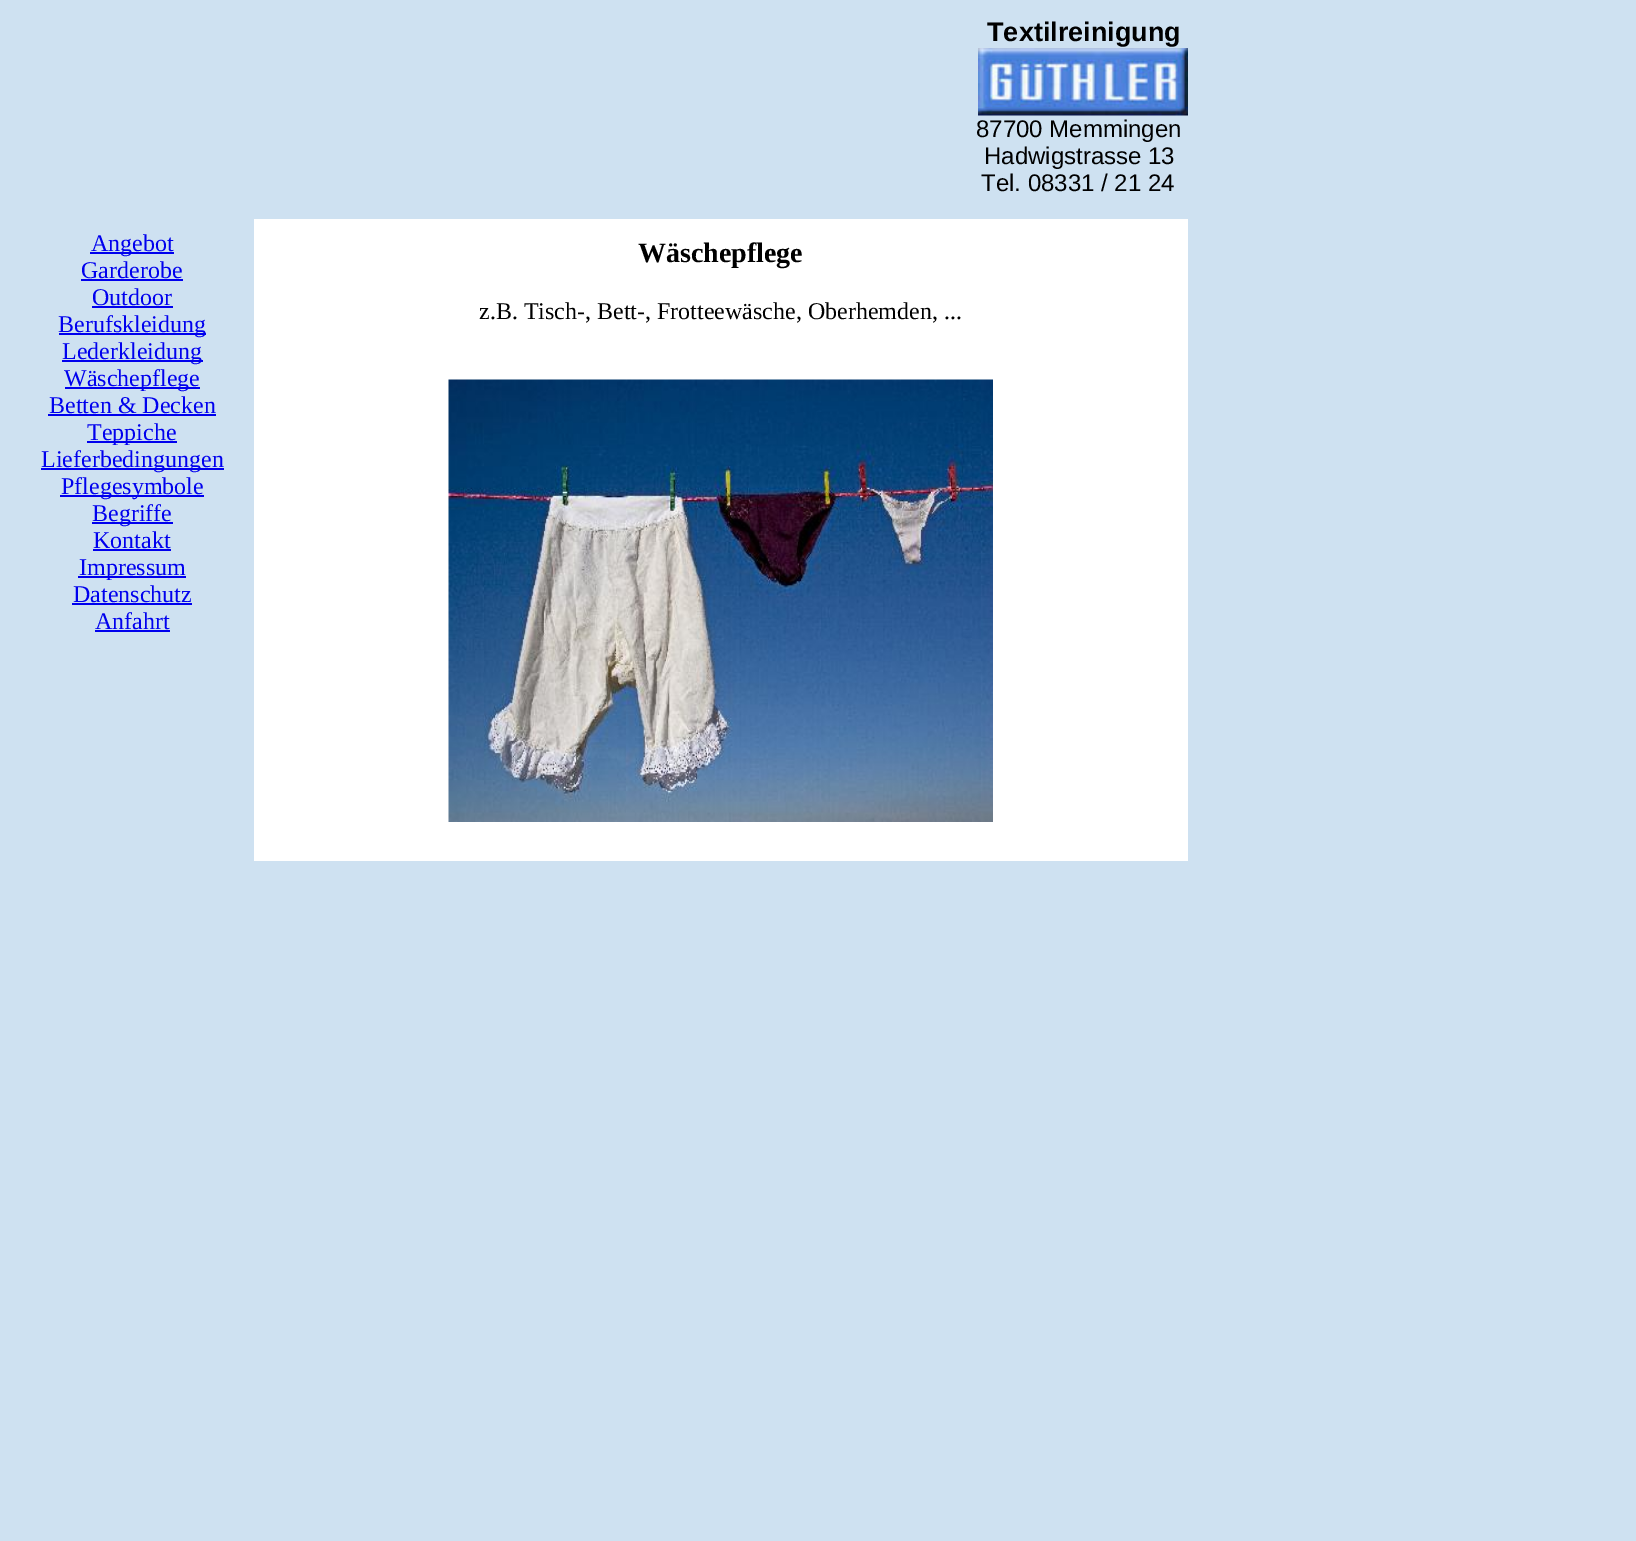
%!PS
<< /PageSize [1636 1541] >> setpagedevice
/co { dup -16 bitshift 255 div exch dup -8 bitshift 255 and 255 div exch 255 and 255 div setrgbcolor } def
/fn { [ exch dup neg 0 0 3 -1 roll 0 0 ] selectfont } def
/tx { co fn moveto show } def
/bx { co rectfill } def
/im { 5 dict begin { /h /w /y /x /name } { exch def } forall
  gsave x y translate w h scale
  w h 8 [w 0 0 h 0 0] name (r) file false 3 colorimage grestore end } def
0 1541 translate 1 -1 scale
4 setmiterlimit
0 0 1636 1541 16#CEE1F1 bx
(media/1.raw) 978 48 210 68 im
90 252 84 2 16#0000EE bx
81 279 102 2 16#0000EE bx
92 306 81 2 16#0000EE bx
59 333 147 2 16#0000EE bx
62 360 141 2 16#0000EE bx
65 387 135 2 16#0000EE bx
48 414 168 2 16#0000EE bx
87 441 90 2 16#0000EE bx
41 468 183 2 16#0000EE bx
60 495 144 2 16#0000EE bx
92 522 81 2 16#0000EE bx
93 549 78 2 16#0000EE bx
78 576 108 2 16#0000EE bx
72 603 120 2 16#0000EE bx
95 630 75 2 16#0000EE bx
254 219 934 642 16#FFFFFF bx
(media/2.raw) 448 379 545 443 im
(Textilreinigung) 987 41 /LiberationSans-Bold 27 16#000000 tx
(87700 Memmingen) 976 137 /LiberationSans-Regular 24 16#000000 tx
(Hadwigstrasse 13) 984 164 /LiberationSans-Regular 24 16#000000 tx
(Tel. 08331 / 21 24) 981 191 /LiberationSans-Regular 24 16#000000 tx
(Angebot) 91 251 /LiberationSerif-Regular 24 16#0000EE tx
(Garderobe) 81 278 /LiberationSerif-Regular 24 16#0000EE tx
(Outdoor) 92 305 /LiberationSerif-Regular 24 16#0000EE tx
(Berufskleidung) 58 332 /LiberationSerif-Regular 24 16#0000EE tx
(Lederkleidung) 62 359 /LiberationSerif-Regular 24 16#0000EE tx
(Wäschepflege) 64 386 /LiberationSerif-Regular 24 16#0000EE tx
(Betten & Decken) 49 413 /LiberationSerif-Regular 24 16#0000EE tx
(Teppiche) 87 440 /LiberationSerif-Regular 24 16#0000EE tx
(Lieferbedingungen) 41 467 /LiberationSerif-Regular 24 16#0000EE tx
(Pflegesymbole) 61 494 /LiberationSerif-Regular 24 16#0000EE tx
(Begriffe) 92 521 /LiberationSerif-Regular 24 16#0000EE tx
(Kontakt) 93 548 /LiberationSerif-Regular 24 16#0000EE tx
(Impressum) 79 575 /LiberationSerif-Regular 24 16#0000EE tx
(Datenschutz) 73 602 /LiberationSerif-Regular 24 16#0000EE tx
(Anfahrt) 95 629 /LiberationSerif-Regular 24 16#0000EE tx
(Wäschepflege) 638 262 /LiberationSerif-Bold 28 16#000000 tx
(z.B. Tisch-, Bett-, Frotteewäsche, Oberhemden, ...) 479 319 /LiberationSerif-Regular 24 16#000000 tx
showpage
